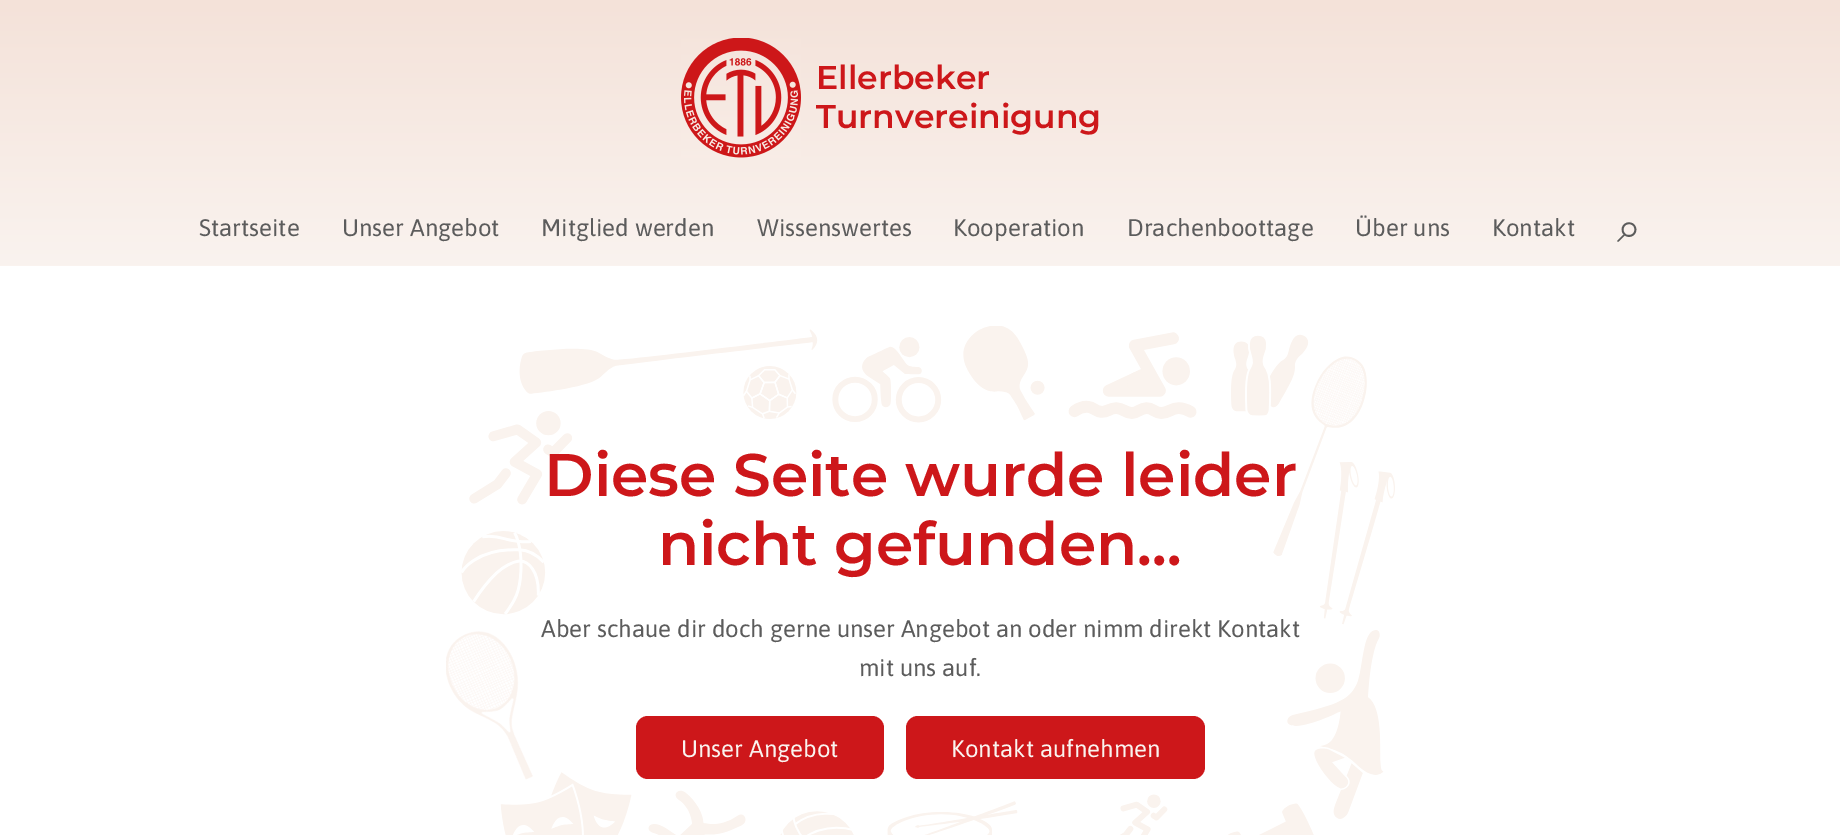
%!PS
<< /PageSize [1840 835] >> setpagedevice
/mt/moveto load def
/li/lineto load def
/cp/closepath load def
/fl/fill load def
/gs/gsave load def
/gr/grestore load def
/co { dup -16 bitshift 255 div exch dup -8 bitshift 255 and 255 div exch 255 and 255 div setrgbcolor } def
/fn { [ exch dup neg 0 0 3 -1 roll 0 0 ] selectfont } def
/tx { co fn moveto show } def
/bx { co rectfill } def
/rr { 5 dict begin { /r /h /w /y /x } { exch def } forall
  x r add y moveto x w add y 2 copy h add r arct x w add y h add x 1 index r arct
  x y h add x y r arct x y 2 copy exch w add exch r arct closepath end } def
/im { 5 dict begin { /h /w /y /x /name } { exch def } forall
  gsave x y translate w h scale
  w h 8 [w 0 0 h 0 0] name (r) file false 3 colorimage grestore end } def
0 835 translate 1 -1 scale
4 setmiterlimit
0 0 1840 835 16#FFFFFF bx
gs 0 0 mt 1840 0 li 1840 266 li 0 266 li cp clip newpath
<< /ShadingType 2 /ColorSpace /DeviceRGB /Coords [920 0 920 266] /Extend [true true] /Function << /FunctionType 2 /Domain [0 1] /C0 [.957 .886 .851] /C1 [.98 .953 .937] /N 1 >> >> shfill gr
(media/1.raw) 681 38 120 120 im
(media/2.raw) 446 326 949 509 im
16#CD171A co
636 716 248 63 12 rr fl
906 716 299 63 12 rr fl
(Ellerbeker) 816 89 /Montserrat-SemiBold 33 16#CD171A tx
(Turnvereinigung) 816 128 /Montserrat-SemiBold 33 16#CD171A tx
(Startseite) 199 236 /Asap-Regular 24 16#5C5C5C tx
(Unser Angebot) 342 236 /Asap-Regular 24 16#5C5C5C tx
(Mitglied werden) 541 236 /Asap-Regular 24 16#5C5C5C tx
(Wissenswertes) 757 236 /Asap-Regular 24 16#5C5C5C tx
(Kooperation) 953 236 /Asap-Regular 24 16#5C5C5C tx
(Drachenboottage) 1127 236 /Asap-Regular 24 16#5C5C5C tx
(Über uns) 1355 236 /Asap-Regular 24 16#5C5C5C tx
(Kontakt) 1492 236 /Asap-Regular 24 16#5C5C5C tx
(⌕) 1617 242 /FreeSerif-Regular 43 16#5C5C5C tx
(Diese Seite wurde leider) 544 496 /Montserrat-SemiBold 60 16#CD171A tx
(nicht gefunden…) 658 565 /Montserrat-SemiBold 60 16#CD171A tx
(Aber schaue dir doch gerne unser Angebot an oder nimm direkt Kontakt) 541 637 /Asap-Regular 24 16#5C5C5C tx
(mit uns auf.) 859 676 /Asap-Regular 24 16#5C5C5C tx
(Unser Angebot) 681 757 /Asap-Regular 24 16#FAF3EF tx
(Kontakt aufnehmen) 951 757 /Asap-Regular 24 16#FAF3EF tx
showpage
